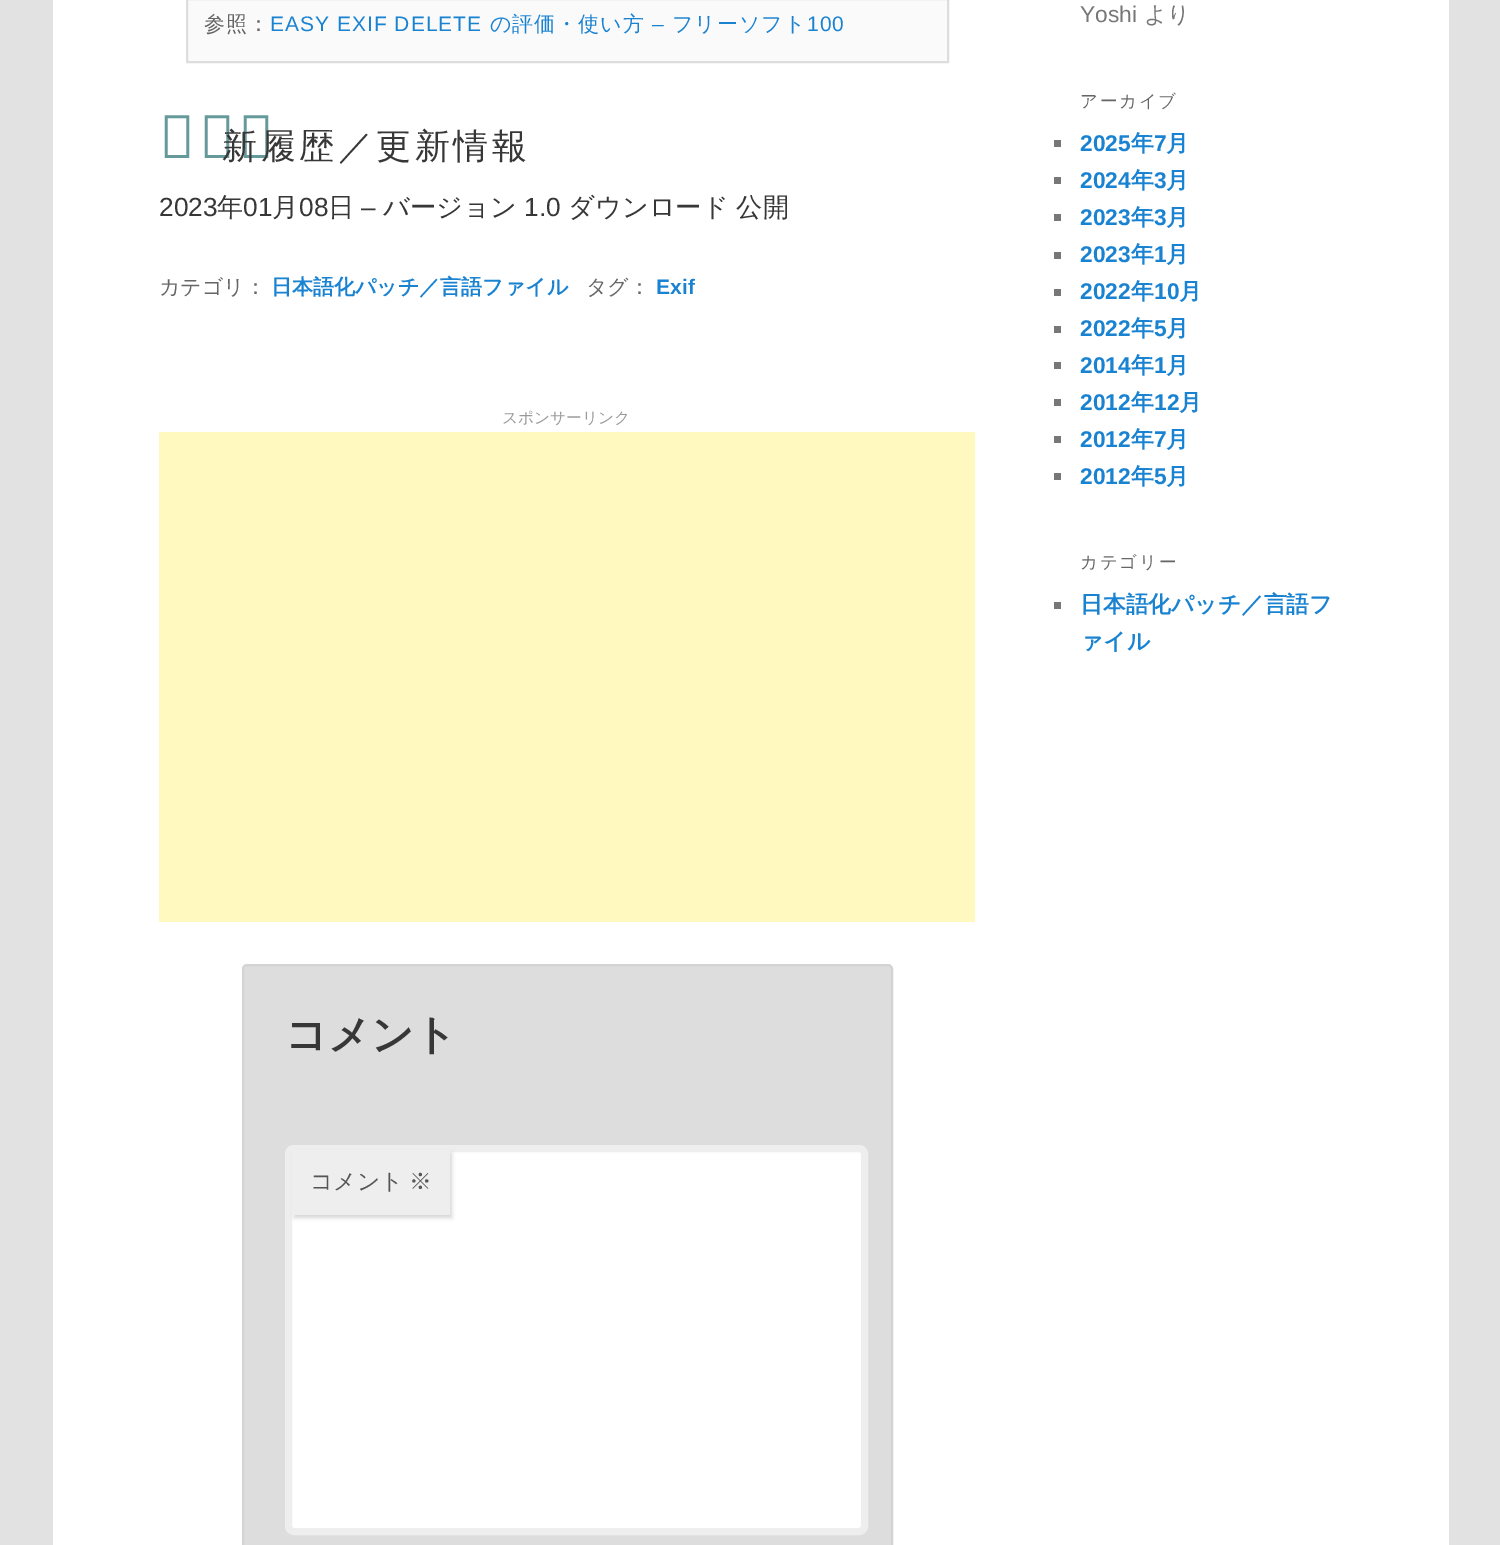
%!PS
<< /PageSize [1500 1545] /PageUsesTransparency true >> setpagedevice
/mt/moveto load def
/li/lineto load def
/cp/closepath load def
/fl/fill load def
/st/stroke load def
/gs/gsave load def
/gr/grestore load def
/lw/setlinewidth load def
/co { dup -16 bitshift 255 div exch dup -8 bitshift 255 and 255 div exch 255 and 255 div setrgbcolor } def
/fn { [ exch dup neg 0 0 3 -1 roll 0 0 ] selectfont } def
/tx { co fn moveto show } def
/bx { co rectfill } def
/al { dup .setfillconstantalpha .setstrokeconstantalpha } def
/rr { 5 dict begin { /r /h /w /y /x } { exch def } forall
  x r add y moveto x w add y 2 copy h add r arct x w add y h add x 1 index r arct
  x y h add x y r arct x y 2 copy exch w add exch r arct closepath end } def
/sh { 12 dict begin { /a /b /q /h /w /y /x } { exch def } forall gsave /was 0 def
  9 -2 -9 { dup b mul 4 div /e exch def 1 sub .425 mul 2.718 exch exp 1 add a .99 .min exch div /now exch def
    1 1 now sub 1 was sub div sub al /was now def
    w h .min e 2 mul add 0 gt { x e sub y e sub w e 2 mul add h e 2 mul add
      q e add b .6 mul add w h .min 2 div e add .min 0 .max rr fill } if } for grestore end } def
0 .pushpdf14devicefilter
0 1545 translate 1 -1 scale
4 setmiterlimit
0 0 1500 1545 16#E2E2E2 bx
53 0 1396 1545 16#FFFFFF bx
16#FAFAFA co
187 -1 mt 948 -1 li 948 62 li 187 62 li cp gs fl gr
16#DDDDDD co
2 lw
st
159 432 816 490 16#FFF9C0 bx
16#DDDDDD co
243 965 649 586 4 rr gs fl gr
16#D3D3D3 co
st
16#FFFFFF co
288.5 1148.5 576 383 5.5 rr gs fl gr
16#EEEEEE co
7 lw
st
16#CCCCCC co
294 1153 158 65 0 2 .8 sh
292 1150 158 65 16#EEEEEE bx
1054 140 7 7 16#777777 bx
1054 177 7 7 16#777777 bx
1054 214 7 7 16#777777 bx
1054 252 7 7 16#777777 bx
1054 289 7 7 16#777777 bx
1054 326 7 7 16#777777 bx
1054 362 7 7 16#777777 bx
1054 399 7 7 16#777777 bx
1054 436 7 7 16#777777 bx
1054 473 7 7 16#777777 bx
1054 602 7 7 16#777777 bx
/WenQuanYiZenHei-Medium 21 fn
16#666666 co
204 31 mt 1 0 (参照：) ashow
/LiberationSans-Regular 21 fn
16#1982D1 co
270 31 mt 1 0 (EASY EXIF DELETE) ashow
/WenQuanYiZenHei-Medium 21 fn
490 31 mt 1 0 (の評価・使い方) ashow
/LiberationSans-Regular 21 fn
652 31 mt 1 0 (–) ashow
/WenQuanYiZenHei-Medium 21 fn
672 31 mt 1 0 (フリーソフト) ashow
/LiberationSans-Regular 21 fn
807 31 mt 1 0 (100) ashow
/NotoSans-Thin 60 fn
16#669A9A co
159 158 mt 3.5 0 (更) ashow
/WenQuanYiZenHei-Medium 35 fn
16#373737 co
222 158 mt 3.5 0 (新履歴／更新情報) ashow
(2023) 159 216 /LiberationSans-Regular 26.25 16#373737 tx
(年) 217 216 /WenQuanYiZenHei-Medium 26.25 16#373737 tx
(01) 243 216 /LiberationSans-Regular 26.25 16#373737 tx
(月) 272 216 /WenQuanYiZenHei-Medium 26.25 16#373737 tx
(08) 299 216 /LiberationSans-Regular 26.25 16#373737 tx
(日) 328 216 /WenQuanYiZenHei-Medium 26.25 16#373737 tx
(–) 361 216 /LiberationSans-Regular 26.25 16#373737 tx
(バージョン) 383 216 /WenQuanYiZenHei-Medium 26.25 16#373737 tx
(1.0) 524 216 /LiberationSans-Regular 26.25 16#373737 tx
(ダウンロード 公開) 568 216 /WenQuanYiZenHei-Medium 26.25 16#373737 tx
(カテゴリ：) 159 294 /WenQuanYiZenHei-Medium 21 16#666666 tx
(日本語化パッチ／言語ファイル) 271 294 /WenQuanYiZenHei-Bold 21 16#1982D1 tx
(タグ：) 586 294 /WenQuanYiZenHei-Medium 21 16#666666 tx
(Exif) 656 294 /LiberationSans-Bold 21 16#1982D1 tx
(スポンサーリンク) 502 423 /WenQuanYiZenHei-Medium 15.75 16#999999 tx
(コメント) 285 1049 /WenQuanYiZenHei-Bold 42 16#373737 tx
(コメント) 310 1189 /WenQuanYiZenHei-Medium 22.75 16#555555 tx
(※) 409 1189 /WenQuanYiZenHei-Medium 22.75 16#555555 tx
(Yoshi) 1080 22 /LiberationSans-Regular 22.75 16#777777 tx
(より) 1144 22 /WenQuanYiZenHei-Medium 22.75 16#777777 tx
/WenQuanYiZenHei-Medium 17.5 fn
16#666666 co
1080 107 mt 1.75 0 (アーカイブ) ashow
(2025) 1080 151 /LiberationSans-Bold 22.75 16#1982D1 tx
(年) 1131 151 /WenQuanYiZenHei-Bold 22.75 16#1982D1 tx
(7) 1154 151 /LiberationSans-Bold 22.75 16#1982D1 tx
(月) 1166 151 /WenQuanYiZenHei-Bold 22.75 16#1982D1 tx
(2024) 1080 188 /LiberationSans-Bold 22.75 16#1982D1 tx
(年) 1131 188 /WenQuanYiZenHei-Bold 22.75 16#1982D1 tx
(3) 1154 188 /LiberationSans-Bold 22.75 16#1982D1 tx
(月) 1166 188 /WenQuanYiZenHei-Bold 22.75 16#1982D1 tx
(2023) 1080 225 /LiberationSans-Bold 22.75 16#1982D1 tx
(年) 1131 225 /WenQuanYiZenHei-Bold 22.75 16#1982D1 tx
(3) 1154 225 /LiberationSans-Bold 22.75 16#1982D1 tx
(月) 1166 225 /WenQuanYiZenHei-Bold 22.75 16#1982D1 tx
(2023) 1080 262 /LiberationSans-Bold 22.75 16#1982D1 tx
(年) 1131 262 /WenQuanYiZenHei-Bold 22.75 16#1982D1 tx
(1) 1154 262 /LiberationSans-Bold 22.75 16#1982D1 tx
(月) 1166 262 /WenQuanYiZenHei-Bold 22.75 16#1982D1 tx
(2022) 1080 299 /LiberationSans-Bold 22.75 16#1982D1 tx
(年) 1131 299 /WenQuanYiZenHei-Bold 22.75 16#1982D1 tx
(10) 1154 299 /LiberationSans-Bold 22.75 16#1982D1 tx
(月) 1179 299 /WenQuanYiZenHei-Bold 22.75 16#1982D1 tx
(2022) 1080 336 /LiberationSans-Bold 22.75 16#1982D1 tx
(年) 1131 336 /WenQuanYiZenHei-Bold 22.75 16#1982D1 tx
(5) 1154 336 /LiberationSans-Bold 22.75 16#1982D1 tx
(月) 1166 336 /WenQuanYiZenHei-Bold 22.75 16#1982D1 tx
(2014) 1080 373 /LiberationSans-Bold 22.75 16#1982D1 tx
(年) 1131 373 /WenQuanYiZenHei-Bold 22.75 16#1982D1 tx
(1) 1154 373 /LiberationSans-Bold 22.75 16#1982D1 tx
(月) 1166 373 /WenQuanYiZenHei-Bold 22.75 16#1982D1 tx
(2012) 1080 410 /LiberationSans-Bold 22.75 16#1982D1 tx
(年) 1131 410 /WenQuanYiZenHei-Bold 22.75 16#1982D1 tx
(12) 1154 410 /LiberationSans-Bold 22.75 16#1982D1 tx
(月) 1179 410 /WenQuanYiZenHei-Bold 22.75 16#1982D1 tx
(2012) 1080 447 /LiberationSans-Bold 22.75 16#1982D1 tx
(年) 1131 447 /WenQuanYiZenHei-Bold 22.75 16#1982D1 tx
(7) 1154 447 /LiberationSans-Bold 22.75 16#1982D1 tx
(月) 1166 447 /WenQuanYiZenHei-Bold 22.75 16#1982D1 tx
(2012) 1080 484 /LiberationSans-Bold 22.75 16#1982D1 tx
(年) 1131 484 /WenQuanYiZenHei-Bold 22.75 16#1982D1 tx
(5) 1154 484 /LiberationSans-Bold 22.75 16#1982D1 tx
(月) 1166 484 /WenQuanYiZenHei-Bold 22.75 16#1982D1 tx
/WenQuanYiZenHei-Medium 17.5 fn
16#666666 co
1080 568 mt 1.75 0 (カテゴリー) ashow
(日本語化パッチ／言語フ) 1080 612 /WenQuanYiZenHei-Bold 22.75 16#1982D1 tx
(ァイル) 1080 649 /WenQuanYiZenHei-Bold 22.75 16#1982D1 tx
.poppdf14devicefilter showpage
